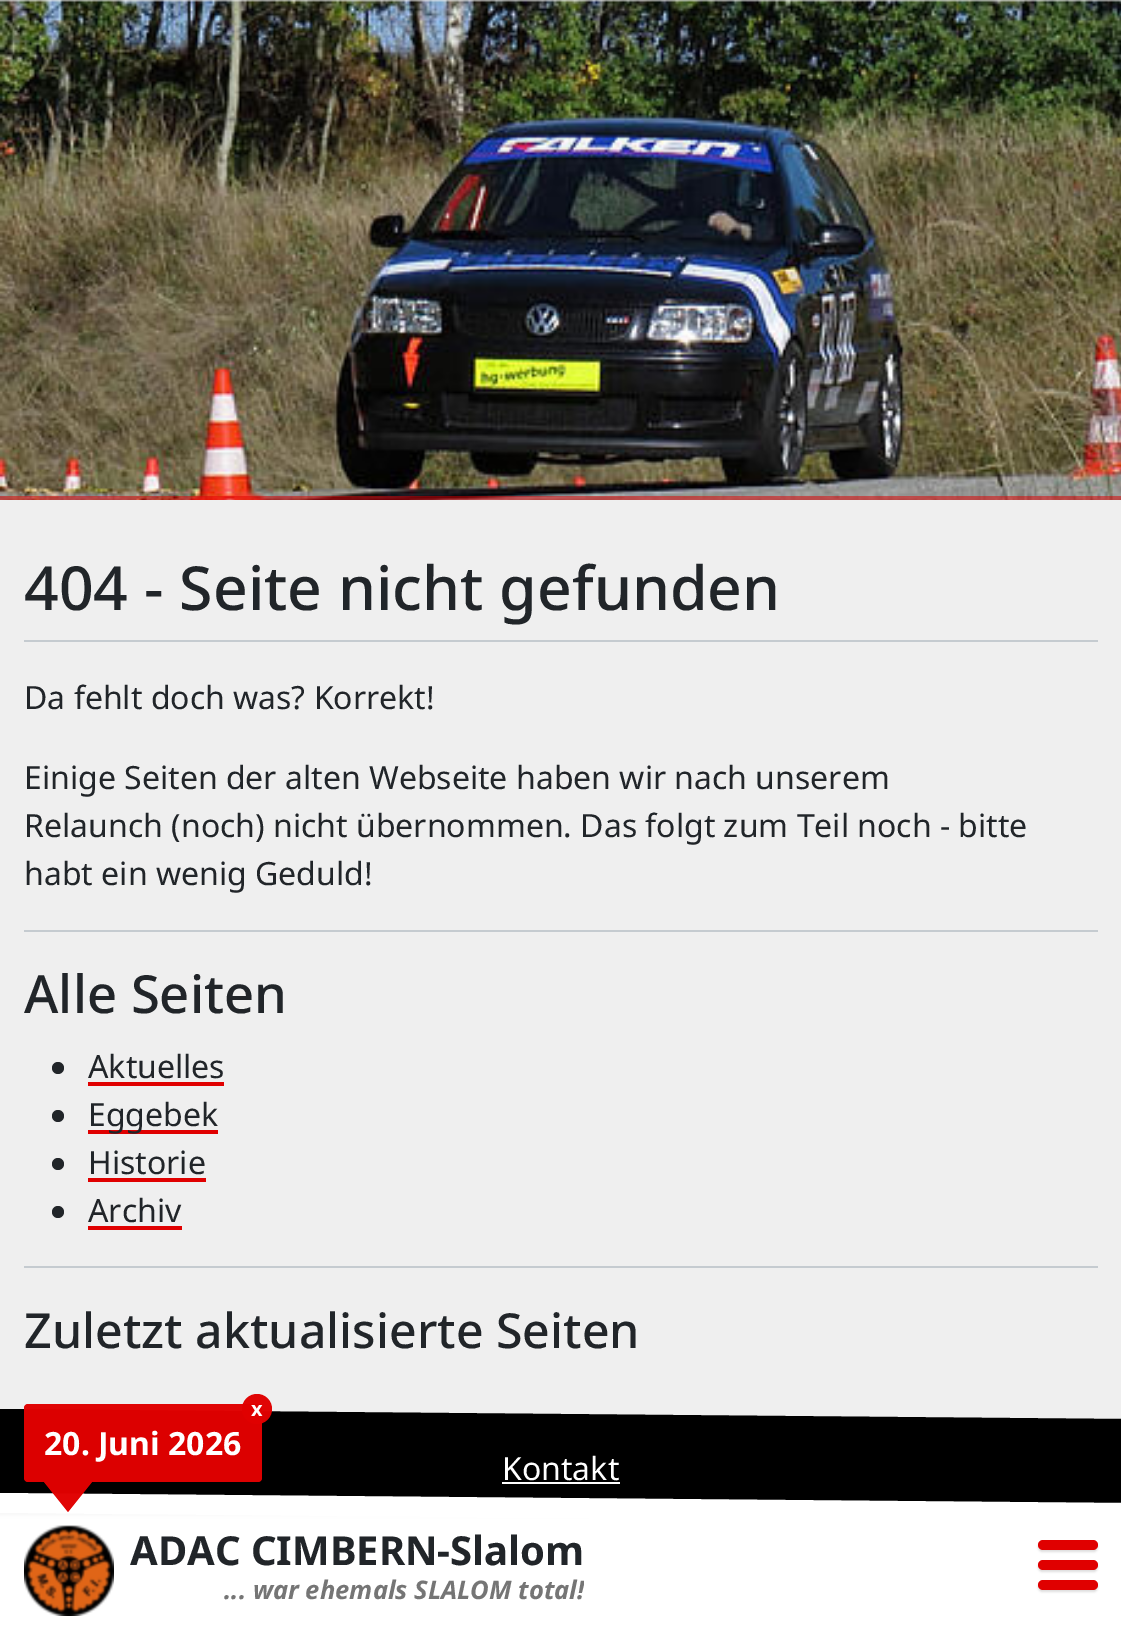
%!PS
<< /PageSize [1121 1642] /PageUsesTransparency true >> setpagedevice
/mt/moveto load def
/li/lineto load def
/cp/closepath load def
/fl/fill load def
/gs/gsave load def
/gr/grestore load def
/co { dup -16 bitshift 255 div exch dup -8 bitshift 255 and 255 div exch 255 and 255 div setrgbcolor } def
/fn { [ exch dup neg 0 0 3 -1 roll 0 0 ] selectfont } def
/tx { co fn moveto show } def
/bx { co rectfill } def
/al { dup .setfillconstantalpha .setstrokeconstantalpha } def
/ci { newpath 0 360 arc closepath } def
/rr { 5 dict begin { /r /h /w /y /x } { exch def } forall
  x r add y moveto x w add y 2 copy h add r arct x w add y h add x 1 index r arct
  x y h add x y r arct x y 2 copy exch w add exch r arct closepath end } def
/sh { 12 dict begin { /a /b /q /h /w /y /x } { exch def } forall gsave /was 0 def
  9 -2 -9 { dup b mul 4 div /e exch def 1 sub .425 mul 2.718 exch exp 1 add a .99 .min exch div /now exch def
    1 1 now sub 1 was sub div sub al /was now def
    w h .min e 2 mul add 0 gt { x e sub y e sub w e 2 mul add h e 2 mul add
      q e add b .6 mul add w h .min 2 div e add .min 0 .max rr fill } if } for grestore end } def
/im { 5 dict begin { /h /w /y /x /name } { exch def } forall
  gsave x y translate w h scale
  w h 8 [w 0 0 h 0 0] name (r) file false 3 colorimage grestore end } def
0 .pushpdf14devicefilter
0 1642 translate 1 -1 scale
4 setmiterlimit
0 0 1121 1642 16#EFEFEF bx
(media/1.raw) 0 0 1121 500 im
0.5 al
0 496 1121 4 16#E00000 bx
1 al
24 640 1074 2 16#C5CBD0 bx
24 930 1074 2 16#C5CBD0 bx
16#212529 co
58 1068 6 ci fl
88 1082 136 4 16#E00000 bx
16#212529 co
58 1116 6 ci fl
88 1130 130 4 16#E00000 bx
16#212529 co
58 1164 6 ci fl
88 1178 118 4 16#E00000 bx
16#212529 co
58 1212 6 ci fl
88 1226 94 4 16#E00000 bx
24 1266 1074 2 16#C5CBD0 bx
0 1513 1121 129 16#FFFFFF bx
0 1429 1121 74 16#000000 bx
0 1409 mt 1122 1419 li 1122 1439 li 0 1429 li cp fl
0.98 al
16#E00000 co
24 1404 238 78 4 rr fl
257 1409 15 ci fl
1 al
502 1482 118 2 16#FFFFFF bx
16#000000 co
0 1492 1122 20 0 3 .12 sh
16#FFFFFF co
0 1493 mt 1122 1503 li 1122 1523 li 0 1513 li cp fl
0.98 al
16#E00000 co
44 1482 mt 92 1482 li 68 1512 li cp fl
1 al
(media/2.raw) 24 1525 90 91 im
16#000000 co
1038 1542 60 10 5 1 .12 sh
16#E00000 co
1038 1540 60 10 5 rr fl
16#000000 co
1038 1562 60 10 5 1 .12 sh
16#E00000 co
1038 1560 60 10 5 rr fl
16#000000 co
1038 1582 60 10 5 1 .12 sh
16#E00000 co
1038 1580 60 10 5 rr fl
(404 - Seite nicht gefunden) 24 610 /NotoSans-Medium 60.75 16#212529 tx
(Da fehlt doch was? Korrekt!) 24 709 /NotoSans-Regular 32 16#212529 tx
(Einige Seiten der alten Webseite haben wir nach unserem) 24 789 /NotoSans-Regular 32 16#212529 tx
(Relaunch \(noch\) nicht übernommen. Das folgt zum Teil noch - bitte) 24 837 /NotoSans-Regular 32 16#212529 tx
(habt ein wenig Geduld!) 24 885 /NotoSans-Regular 32 16#212529 tx
(Alle Seiten) 24 1013 /NotoSans-Medium 52.5 16#212529 tx
(Aktuelles) 88 1078 /NotoSans-Regular 32 16#212529 tx
(Eggebek) 88 1126 /NotoSans-Regular 32 16#212529 tx
(Historie) 88 1174 /NotoSans-Regular 32 16#212529 tx
(Archiv) 88 1222 /NotoSans-Regular 32 16#212529 tx
(Zuletzt aktualisierte Seiten) 24 1348 /NotoSans-Medium 48.3 16#212529 tx
(x) 251 1416 /NotoSans-Bold 20 16#FFFFFF tx
(20. Juni 2026) 44 1455 /NotoSans-Bold 32 16#FFFFFF tx
(ADAC CIMBERN-Slalom) 130 1565 /NotoSans-Bold 40 16#212529 tx
gs
130 1520 454 90 rectclip
(... war ehemals SLALOM total!) 224 1599 /NotoSans-BoldItalic 25.6 16#757575 tx
gr
(Kontakt) 502 1480 /NotoSans-Regular 32 16#FFFFFF tx
.poppdf14devicefilter showpage
